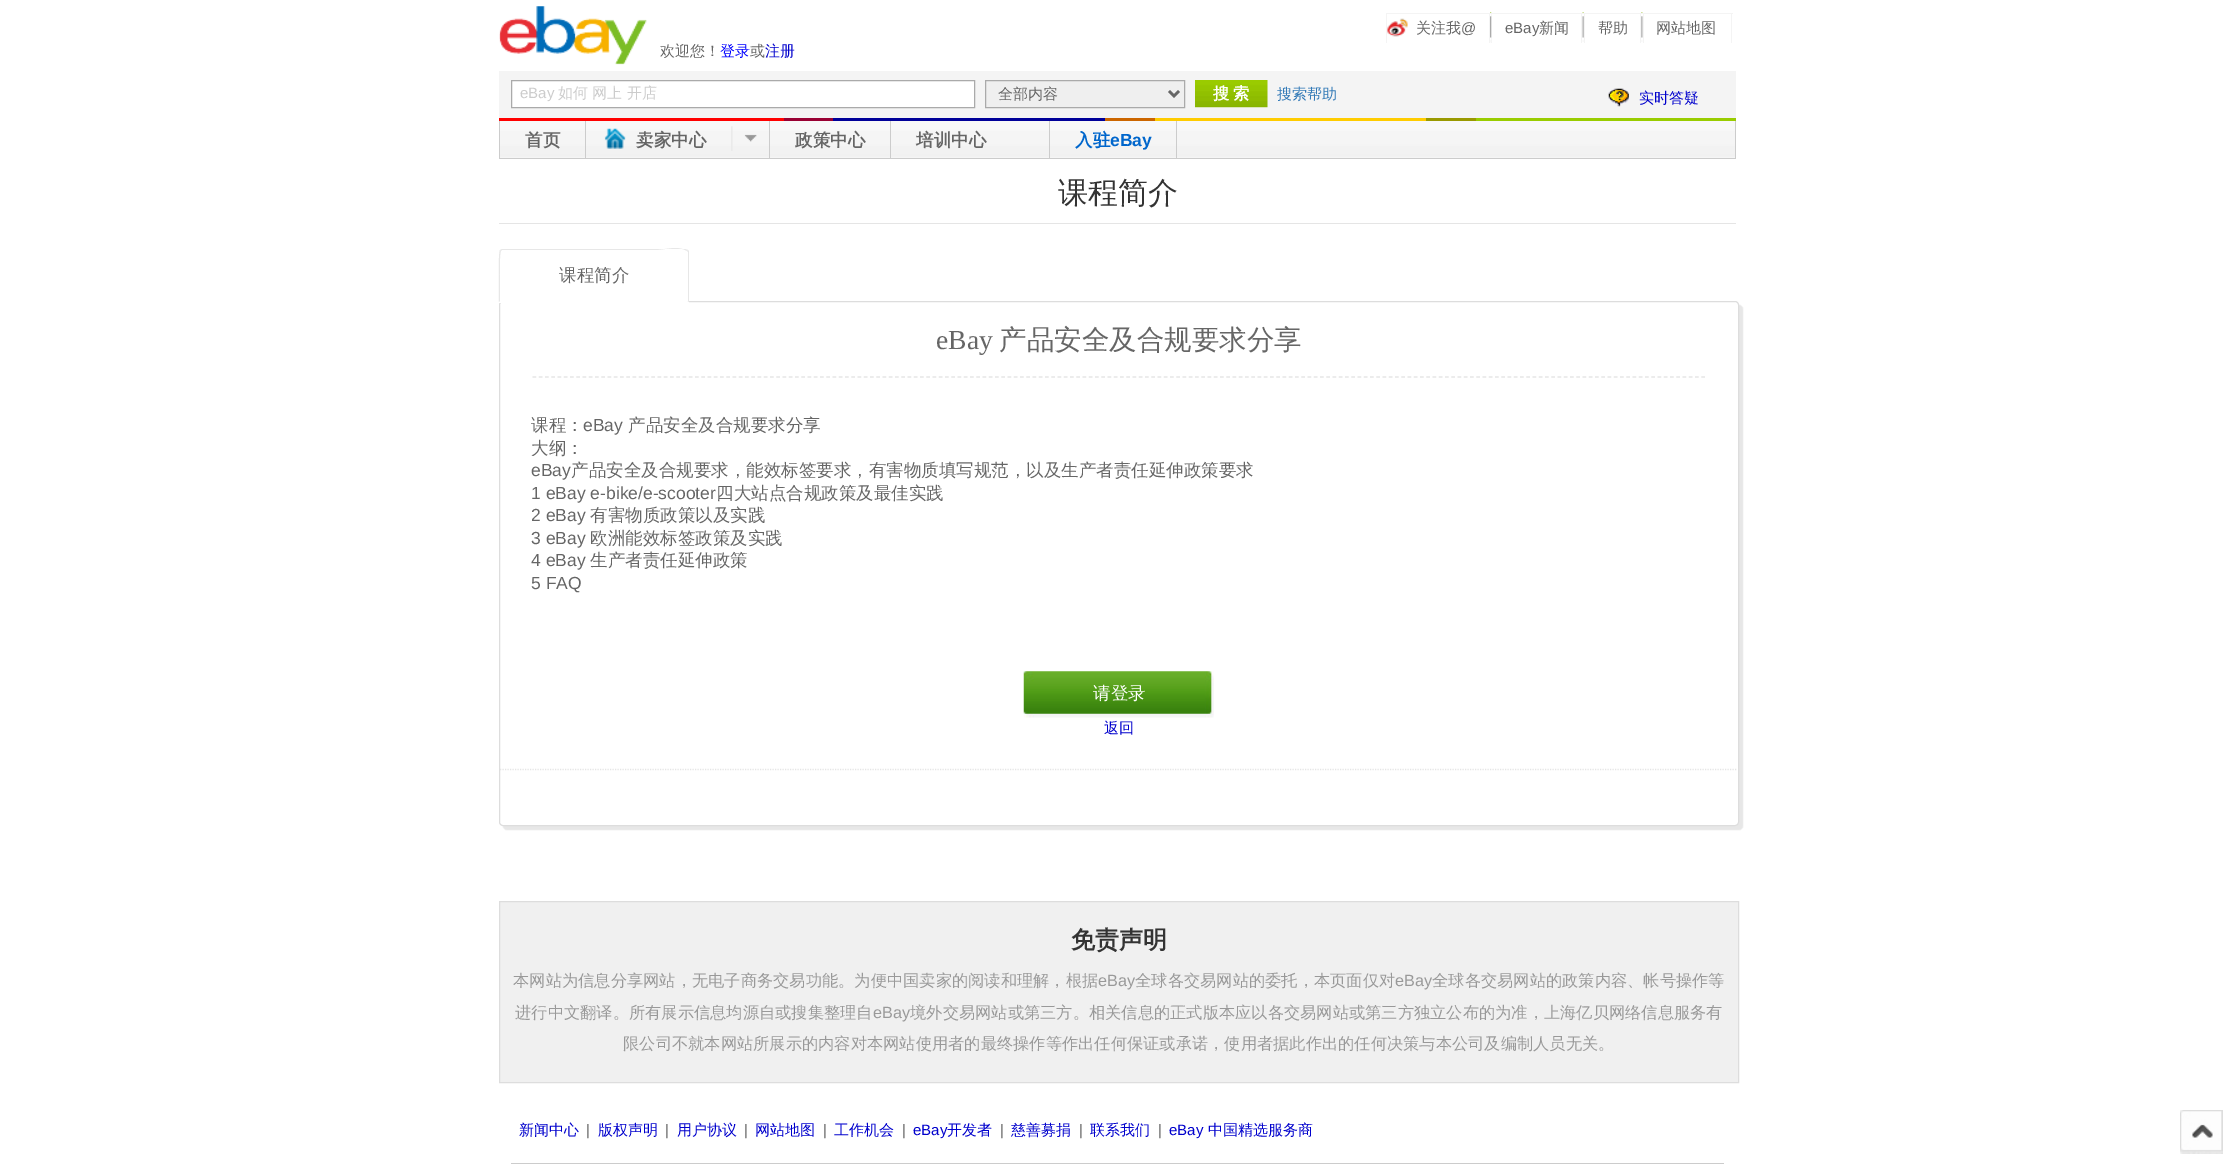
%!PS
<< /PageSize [2234 1166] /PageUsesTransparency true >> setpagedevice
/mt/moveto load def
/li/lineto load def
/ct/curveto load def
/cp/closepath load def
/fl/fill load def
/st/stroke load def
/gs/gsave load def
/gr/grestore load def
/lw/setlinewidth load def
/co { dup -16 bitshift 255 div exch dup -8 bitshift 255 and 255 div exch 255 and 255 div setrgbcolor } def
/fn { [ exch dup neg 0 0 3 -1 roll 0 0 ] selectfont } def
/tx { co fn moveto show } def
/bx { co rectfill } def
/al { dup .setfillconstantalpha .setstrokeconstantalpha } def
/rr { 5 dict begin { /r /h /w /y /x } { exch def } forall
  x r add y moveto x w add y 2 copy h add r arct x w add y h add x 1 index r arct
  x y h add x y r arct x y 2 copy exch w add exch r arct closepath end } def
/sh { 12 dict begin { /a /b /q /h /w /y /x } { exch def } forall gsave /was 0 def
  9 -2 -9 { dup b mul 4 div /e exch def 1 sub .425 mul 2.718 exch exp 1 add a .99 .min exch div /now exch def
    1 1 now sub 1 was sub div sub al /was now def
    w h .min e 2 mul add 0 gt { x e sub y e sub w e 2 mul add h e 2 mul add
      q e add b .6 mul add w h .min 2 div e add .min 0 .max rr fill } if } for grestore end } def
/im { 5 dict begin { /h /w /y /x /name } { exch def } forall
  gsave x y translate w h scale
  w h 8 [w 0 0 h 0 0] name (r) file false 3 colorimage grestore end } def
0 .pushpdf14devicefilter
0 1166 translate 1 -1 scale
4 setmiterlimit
0 0 2234 1166 16#FFFFFF bx
(media/1.raw) 1387 18 21 19 im
1386 13 107 1 16#F4F4F4 bx
1491 13 1 30 16#F4F4F4 bx
1386 13 1 30 16#F4F4F4 bx
(media/2.raw) 1490 12 2 31 im
1489 13 96 1 16#F4F4F4 bx
1584 13 1 30 16#F4F4F4 bx
1489 13 1 30 16#F4F4F4 bx
(media/3.raw) 1582 12 2 30 im
1581 13 63 1 16#F4F4F4 bx
1643 13 1 30 16#F4F4F4 bx
1581 13 1 30 16#F4F4F4 bx
(media/4.raw) 1641 12 2 30 im
1640 13 93 1 16#F4F4F4 bx
1731 13 1 30 16#F4F4F4 bx
1640 13 1 30 16#F4F4F4 bx
(media/5.raw) 499 6 148 59 im
499 71 1237 47 16#F4F4F4 bx
16#FFFFFF co
511.5 80.5 mt 974.5 80.5 li 974.5 107.5 li 511.5 107.5 li cp gs fl gr
16#AAAAAA co
st
16#EFEFEF co
985.5 80.5 mt 1184.5 80.5 li 1184.5 107.5 li 985.5 107.5 li cp gs fl gr
16#AAAAAA co
st
16#666666 co
2.5 lw
1169 91 mt 1174 96 li 1179 91 li st
(media/6.raw) 1195 80 73 28 im
(media/7.raw) 1608 88 21 19 im
1735 120 1 39 16#CCCCCC bx
499 158 1237 1 16#CCCCCC bx
499 120 1 39 16#CCCCCC bx
(media/8.raw) 500 121 1235 37 im
585 120 1 38 16#CCCCCC bx
769 120 1 38 16#CCCCCC bx
499 118 285 3 16#FF0000 bx
784 118 49 3 16#990033 bx
890 120 1 38 16#CCCCCC bx
1049 120 1 38 16#CCCCCC bx
833 118 272 3 16#000099 bx
1105 118 50 3 16#CC6600 bx
1176 120 1 38 16#CCCCCC bx
1155 118 271 3 16#FFCC00 bx
1426 118 50 3 16#999900 bx
1476 118 260 3 16#99CC00 bx
(media/9.raw) 731 126 26 25 im
(media/10.raw) 604 128 22 21 im
499 223 1237 1 16#E5E5E5 bx
16#E6E6E6 co
503 305 1240 525 4 .5 1 sh
16#FFFFFF co
499.5 301.5 1239 524 3.5 rr gs fl gr
16#DDDDDD co
1 lw
st
16#FFFFFF co
503 249 mt 685 249 li 687 249 689 251 689 253 ct 689 303 li 499 303 li 499 253 li 499 251 501 249 503 249 ct cp fl
16#E7E7E7 co
502 249 mt 500 250 li 501 251 li 502 250 li 654 250 li 665 250 678 245 687 251 ct 688 250 li 685 249 li cp fl
688 250 mt 689 251 li 689 302 li 687 301 li 688 301 li 688 252 li 687 251 li cp fl
16#FFFFFF co
688 302 mt 499 302 li 500 301 li 687 301 li cp fl
16#E7E7E7 co
500 250 mt 498 252 499 296 499 302 ct 500 301 li 500 295 499 252 501 251 ct cp fl
16#E5E5E5 co
1.2 lw
[3.75 2.5] 0 setdash
532.5 377 mt 1705 377 li st
[1.25 1.25] 0 setdash
500 769.5 mt 1737.5 769.5 li st
(media/11.raw) 1023 671 191 47 im
16#F0F0F0 co
499.5 901.5 mt 1738.5 901.5 li 1738.5 1082.5 li 499.5 1082.5 li cp gs fl gr
16#DDDDDD co
1 lw
[] 0 setdash
st
511 1163 1213 1 16#CCCCCC bx
(media/12.raw) 2180 1110 43 44 im
(关注我) 1416 33 /WenQuanYiZenHei-Medium 15 16#666666 tx
(@) 1461 33 /LiberationSans-Regular 15 16#666666 tx
(eBay) 1505 33 /LiberationSans-Regular 15 16#666666 tx
(新闻) 1539 33 /WenQuanYiZenHei-Medium 15 16#666666 tx
(帮助) 1598 33 /WenQuanYiZenHei-Medium 15 16#666666 tx
(网站地图) 1656 33 /WenQuanYiZenHei-Medium 15 16#666666 tx
(欢迎您！) 660 56 /WenQuanYiZenHei-Medium 15 16#666666 tx
(登录) 720 56 /WenQuanYiZenHei-Medium 15 16#0000FF tx
(或) 750 56 /WenQuanYiZenHei-Medium 15 16#666666 tx
(注册) 765 56 /WenQuanYiZenHei-Medium 15 16#0000CC tx
(eBay) 520 98 /LiberationSans-Regular 15 16#CCCCCC tx
(如何 网上 开店) 558 98 /WenQuanYiZenHei-Medium 15 16#CCCCCC tx
(全部内容) 998 99 /WenQuanYiZenHei-Medium 15 16#666666 tx
(搜) 1213 99 /WenQuanYiZenHei-Bold 16.25 16#FFFFFF tx
(索) 1233 99 /WenQuanYiZenHei-Bold 16.25 16#FFFFFF tx
(搜索帮助) 1277 99 /WenQuanYiZenHei-Medium 15 16#337AB7 tx
(实时答疑) 1639 103 /WenQuanYiZenHei-Medium 15 16#0000CC tx
(首页) 525 146 /WenQuanYiZenHei-Bold 17.5 16#666666 tx
(卖家中心) 636 146 /WenQuanYiZenHei-Bold 17.5 16#666666 tx
(政策中心) 795 146 /WenQuanYiZenHei-Bold 17.5 16#666666 tx
(培训中心) 916 146 /WenQuanYiZenHei-Bold 17.5 16#666666 tx
(入驻) 1075 146 /WenQuanYiZenHei-Bold 17.5 16#0066CC tx
(eBay) 1110 146 /LiberationSans-Bold 17.5 16#0066CC tx
(课程简介) 1058 203 /WenQuanYiZenHei-Medium 30 16#333333 tx
(课程简介) 559 281 /WenQuanYiZenHei-Medium 17.5 16#666666 tx
(eBay) 936 349 /LiberationSerif-Regular 27.5 16#666666 tx
(产品安全及合规要求分享) 999 349 /WenQuanYiZenHei-Medium 27.5 16#666666 tx
(课程：) 531 431 /WenQuanYiZenHei-Medium 17.5 16#666666 tx
(eBay) 583 431 /LiberationSans-Regular 17.5 16#666666 tx
(产品安全及合规要求分享) 628 431 /WenQuanYiZenHei-Medium 17.5 16#666666 tx
(大纲：) 531 454 /WenQuanYiZenHei-Medium 17.5 16#666666 tx
(eBay) 531 476 /LiberationSans-Regular 17.5 16#666666 tx
(产品安全及合规要求，能效标签要求，有害物质填写规范，以及生产者责任延伸政策要求) 571 476 /WenQuanYiZenHei-Medium 17.5 16#666666 tx
(1 eBay e-bike/e-scooter) 531 499 /LiberationSans-Regular 17.5 16#666666 tx
(四大站点合规政策及最佳实践) 716 499 /WenQuanYiZenHei-Medium 17.5 16#666666 tx
(2 eBay) 531 521 /LiberationSans-Regular 17.5 16#666666 tx
(有害物质政策以及实践) 590 521 /WenQuanYiZenHei-Medium 17.5 16#666666 tx
(3 eBay) 531 544 /LiberationSans-Regular 17.5 16#666666 tx
(欧洲能效标签政策及实践) 590 544 /WenQuanYiZenHei-Medium 17.5 16#666666 tx
(4 eBay) 531 566 /LiberationSans-Regular 17.5 16#666666 tx
(生产者责任延伸政策) 590 566 /WenQuanYiZenHei-Medium 17.5 16#666666 tx
(5 FAQ) 531 589 /LiberationSans-Regular 17.5 16#666666 tx
(请登录) 1093 699 /WenQuanYiZenHei-Medium 17.5 16#FFFFFF tx
(返回) 1104 733 /WenQuanYiZenHei-Medium 15 16#0000CC tx
(免责声明) 1071 948 /WenQuanYiZenHei-Bold 24 16#333333 tx
(本网站为信息分享网站，无电子商务交易功能。为便中国卖家的阅读和理解，根据) 513 986 /WenQuanYiZenHei-Medium 16.25 16#999999 tx
(eBay) 1098 986 /LiberationSans-Regular 16.25 16#999999 tx
(全球各交易网站的委托，本页面仅对) 1135 986 /WenQuanYiZenHei-Medium 16.25 16#999999 tx
(eBay) 1395 986 /LiberationSans-Regular 16.25 16#999999 tx
(全球各交易网站的政策内容、帐号操作等) 1432 986 /WenQuanYiZenHei-Medium 16.25 16#999999 tx
(进行中文翻译。所有展示信息均源自或搜集整理自) 515 1018 /WenQuanYiZenHei-Medium 16.25 16#999999 tx
(eBay) 873 1018 /LiberationSans-Regular 16.25 16#999999 tx
(境外交易网站或第三方。相关信息的正式版本应以各交易网站或第三方独立公布的为准，上海亿贝网络信息服务有) 910 1018 /WenQuanYiZenHei-Medium 16.25 16#999999 tx
(限公司不就本网站所展示的内容对本网站使用者的最终操作等作出任何保证或承诺，使用者据此作出的任何决策与本公司及编制人员无关。) 623 1049 /WenQuanYiZenHei-Medium 16.25 16#999999 tx
(新闻中心) 519 1135 /WenQuanYiZenHei-Medium 15 16#0000CC tx
(|) 586 1135 /LiberationSans-Regular 15 16#666666 tx
(版权声明) 598 1135 /WenQuanYiZenHei-Medium 15 16#0000CC tx
(|) 665 1135 /LiberationSans-Regular 15 16#666666 tx
(用户协议) 677 1135 /WenQuanYiZenHei-Medium 15 16#0000CC tx
(|) 744 1135 /LiberationSans-Regular 15 16#666666 tx
(网站地图) 755 1135 /WenQuanYiZenHei-Medium 15 16#0000CC tx
(|) 823 1135 /LiberationSans-Regular 15 16#666666 tx
(工作机会) 834 1135 /WenQuanYiZenHei-Medium 15 16#0000CC tx
(|) 902 1135 /LiberationSans-Regular 15 16#666666 tx
(eBay) 913 1135 /LiberationSans-Regular 15 16#0000CC tx
(开发者) 947 1135 /WenQuanYiZenHei-Medium 15 16#0000CC tx
(|) 1000 1135 /LiberationSans-Regular 15 16#666666 tx
(慈善募捐) 1011 1135 /WenQuanYiZenHei-Medium 15 16#0000CC tx
(|) 1079 1135 /LiberationSans-Regular 15 16#666666 tx
(联系我们) 1090 1135 /WenQuanYiZenHei-Medium 15 16#0000CC tx
(|) 1158 1135 /LiberationSans-Regular 15 16#666666 tx
(eBay) 1169 1135 /LiberationSans-Regular 15 16#0000CC tx
(中国精选服务商) 1208 1135 /WenQuanYiZenHei-Medium 15 16#0000CC tx
.poppdf14devicefilter showpage
